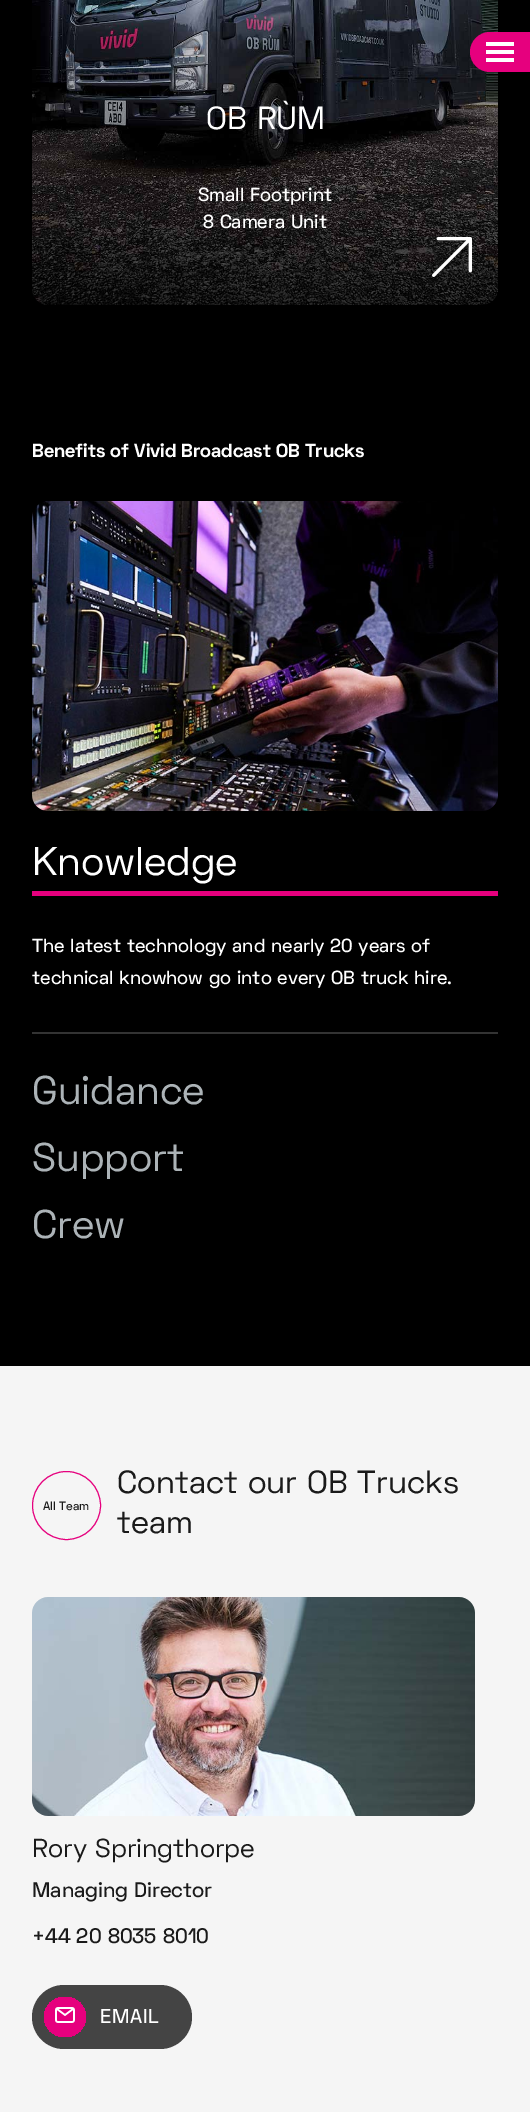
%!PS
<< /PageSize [530 2112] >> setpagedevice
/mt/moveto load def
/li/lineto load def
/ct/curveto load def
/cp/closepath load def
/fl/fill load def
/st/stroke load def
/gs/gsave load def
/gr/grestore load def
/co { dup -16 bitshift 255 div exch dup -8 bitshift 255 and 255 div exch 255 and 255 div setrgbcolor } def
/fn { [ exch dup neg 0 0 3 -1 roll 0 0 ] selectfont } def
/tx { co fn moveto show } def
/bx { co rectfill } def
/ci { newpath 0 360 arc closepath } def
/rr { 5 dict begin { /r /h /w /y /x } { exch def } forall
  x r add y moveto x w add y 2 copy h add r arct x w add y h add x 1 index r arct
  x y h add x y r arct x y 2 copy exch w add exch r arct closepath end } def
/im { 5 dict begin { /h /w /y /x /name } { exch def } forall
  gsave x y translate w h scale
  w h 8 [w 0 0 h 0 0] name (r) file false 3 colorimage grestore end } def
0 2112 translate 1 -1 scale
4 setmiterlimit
0 0 530 2112 16#000000 bx
(media/1.raw) 32 0 466 305 im
16#E6007E co
490 32 mt 530 32 li 530 72 li 490 72 li 479 72 470 63 470 52 ct 470 41 479 32 490 32 ct cp fl
486 42 28 4 16#FFFFFF bx
486 50 28 4 16#FFFFFF bx
486 58 28 4 16#FFFFFF bx
(media/2.raw) 432 237 40 40 im
32 1032 466 2 16#333333 bx
(media/3.raw) 32 501 466 310 im
32 891 466 5 16#E6007E bx
0 1366 530 746 16#F5F5F5 bx
16#E6007E co
66.5 1505.5 34 ci st
(media/4.raw) 32 1597 443 219 im
16#444444 co
32 1985 160 64 32 rr fl
gs
44 1997 42 40 20 rr clip newpath
16#E6007E co
32 1985 160 64 32 rr fl
gr
(media/5.raw) 55 2007 20 16 im
(OB RÙM) 206 129 /SpaceGrotesk-Regular 32 16#FFFFFF tx
(Small Footprint) 198 201 /SpaceGrotesk-Medium 19 16#FFFFFF tx
(8 Camera Unit) 203 228 /SpaceGrotesk-Medium 19 16#FFFFFF tx
(Benefits of Vivid Broadcast OB Trucks) 32 457 /SpaceGrotesk-Bold 19 16#FFFFFF tx
(Knowledge) 32 875 /SpaceGrotesk-Regular 40 16#FFFFFF tx
(The latest technology and nearly 20 years of) 32 952 /SpaceGrotesk-Medium 19 16#FFFFFF tx
(technical knowhow go into every OB truck hire.) 32 984 /SpaceGrotesk-Medium 19 16#FFFFFF tx
(Guidance) 32 1104 /SpaceGrotesk-Regular 40 16#ACB3B7 tx
(Support) 32 1171 /SpaceGrotesk-Regular 40 16#ACB3B7 tx
(Crew) 32 1238 /SpaceGrotesk-Regular 40 16#ACB3B7 tx
(All Team) 43 1510 /SpaceGrotesk-Medium 12 16#1A1A1A tx
(Contact our OB Trucks) 117 1493 /SpaceGrotesk-Regular 32 16#1A1A1A tx
(team) 117 1533 /SpaceGrotesk-Regular 32 16#1A1A1A tx
(Rory Springthorpe) 32 1857 /SpaceGrotesk-Regular 26 16#1A1A1A tx
(Managing Director) 32 1897 /SpaceGrotesk-Medium 21 16#1A1A1A tx
(+44 20 8035 8010) 32 1943 /SpaceGrotesk-Medium 21 16#1A1A1A tx
/SpaceGrotesk-Medium 20 fn
16#FFFFFF co
100 2023 mt .75 0 (EMAIL) ashow
showpage
